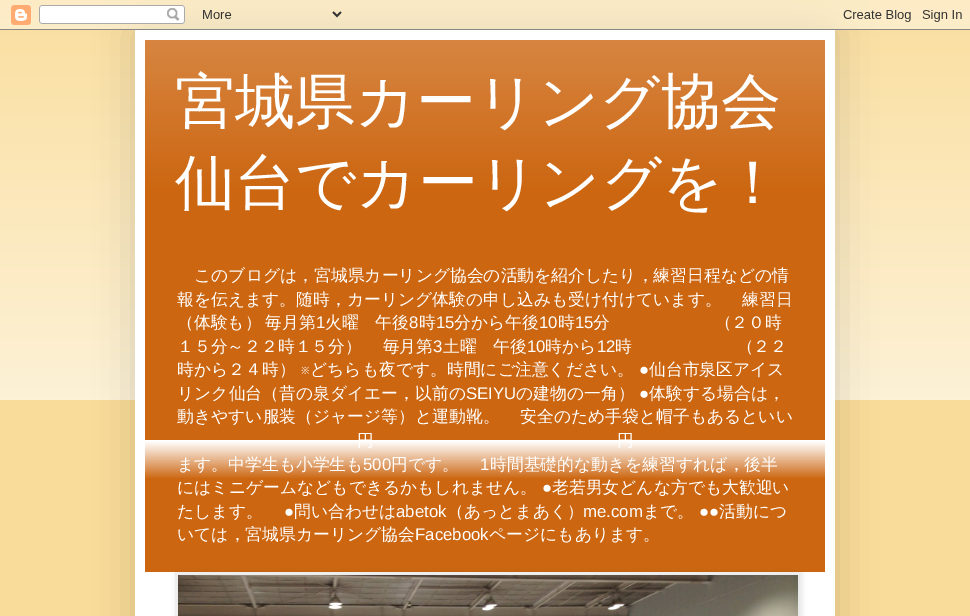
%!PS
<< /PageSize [970 616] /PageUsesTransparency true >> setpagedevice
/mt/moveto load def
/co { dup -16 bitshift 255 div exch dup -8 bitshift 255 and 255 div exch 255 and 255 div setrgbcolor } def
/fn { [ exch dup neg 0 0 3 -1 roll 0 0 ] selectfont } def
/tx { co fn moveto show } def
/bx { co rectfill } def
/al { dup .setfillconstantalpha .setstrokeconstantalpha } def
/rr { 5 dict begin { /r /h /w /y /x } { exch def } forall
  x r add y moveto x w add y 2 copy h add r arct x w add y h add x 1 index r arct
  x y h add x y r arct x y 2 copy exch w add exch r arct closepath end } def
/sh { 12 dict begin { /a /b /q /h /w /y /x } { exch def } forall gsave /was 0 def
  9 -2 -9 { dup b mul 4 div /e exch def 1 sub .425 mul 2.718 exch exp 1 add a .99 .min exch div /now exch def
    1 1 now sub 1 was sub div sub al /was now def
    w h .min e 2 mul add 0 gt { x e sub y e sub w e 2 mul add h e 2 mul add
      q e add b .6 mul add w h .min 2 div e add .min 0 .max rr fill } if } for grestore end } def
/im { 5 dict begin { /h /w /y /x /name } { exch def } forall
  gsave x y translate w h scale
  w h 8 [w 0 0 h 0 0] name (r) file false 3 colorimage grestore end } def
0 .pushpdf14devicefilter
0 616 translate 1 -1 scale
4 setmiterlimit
0 0 970 616 16#F9DC99 bx
(media/1.raw) 0 0 970 400 im
16#000000 co
135 30 700 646 0 20 .15 sh
(media/2.raw) 0 0 970 30 im
135 30 700 586 16#FFFFFF bx
145 40 680 532 16#CC6611 bx
(media/3.raw) 145 40 680 438 im
16#000000 co
176 573 626 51 0 2.5 .1 sh
16#EEEEEE co
175.5 572.5 625 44 rectstroke
(media/4.raw) 178 575 620 41 im
(宮城県カーリング協会) 175 122 /WenQuanYiZenHei-Medium 60 16#FFFFFF tx
(仙台でカーリングを！) 175 203 /WenQuanYiZenHei-Medium 60 16#FFFFFF tx
(このブログは，宮城県カーリング協会の活動を紹介したり，練習日程などの情) 194 281 /WenQuanYiZenHei-Medium 16.8 16#FFFFFF tx
177 305 mt -1 0 32 (報を伝えます。随時，カーリング体験の申し込みも受け付けています。 　練習日) widthshow
177 328 mt -1 0 32 (（体験も） 毎月第) widthshow
(1) 316 328 /LiberationSans-Regular 16.8 16#FFFFFF tx
(火曜　午後) 325 328 /WenQuanYiZenHei-Medium 16.8 16#FFFFFF tx
(8) 409 328 /LiberationSans-Regular 16.8 16#FFFFFF tx
(時) 419 328 /WenQuanYiZenHei-Medium 16.8 16#FFFFFF tx
(15) 436 328 /LiberationSans-Regular 16.8 16#FFFFFF tx
(分から午後) 454 328 /WenQuanYiZenHei-Medium 16.8 16#FFFFFF tx
(10) 539 328 /LiberationSans-Regular 16.8 16#FFFFFF tx
(時) 558 328 /WenQuanYiZenHei-Medium 16.8 16#FFFFFF tx
(15) 575 328 /LiberationSans-Regular 16.8 16#FFFFFF tx
/WenQuanYiZenHei-Medium 16.8 fn
593 328 mt -1 0 32 (分 　　　　　　（２０時) widthshow
177 352 mt -1 0 32 (１５分～２２時１５分）　 毎月第) widthshow
(3) 433 352 /LiberationSans-Regular 16.8 16#FFFFFF tx
(土曜　午後) 443 352 /WenQuanYiZenHei-Medium 16.8 16#FFFFFF tx
(10) 527 352 /LiberationSans-Regular 16.8 16#FFFFFF tx
(時から) 545 352 /WenQuanYiZenHei-Medium 16.8 16#FFFFFF tx
(12) 597 352 /LiberationSans-Regular 16.8 16#FFFFFF tx
/WenQuanYiZenHei-Medium 16.8 fn
615 352 mt -1 0 32 (時 　　　　　　（２２) widthshow
(時から２４時）) 177 375 /WenQuanYiZenHei-Medium 16.8 16#FFFFFF tx
(※) 300 375 /FreeSans-Regular 16.8 16#FFFFFF tx
(どちらも夜です。時間にご注意ください。) 310 375 /WenQuanYiZenHei-Medium 16.8 16#FFFFFF tx
(●) 639 375 /LiberationSans-Regular 16.8 16#FFFFFF tx
(仙台市泉区アイス) 649 375 /WenQuanYiZenHei-Medium 16.8 16#FFFFFF tx
(リンク仙台（昔の泉ダイエー，以前の) 177 399 /WenQuanYiZenHei-Medium 16.8 16#FFFFFF tx
(SEIYU) 466 399 /LiberationSans-Regular 16.8 16#FFFFFF tx
(の建物の一角）) 516 399 /WenQuanYiZenHei-Medium 16.8 16#FFFFFF tx
(●) 639 399 /LiberationSans-Regular 16.8 16#FFFFFF tx
(体験する場合は，) 649 399 /WenQuanYiZenHei-Medium 16.8 16#FFFFFF tx
177 422 mt -1 0 32 (動きやすい服装（ジャージ等）と運動靴。 　安全のため手袋と帽子もあるといい) widthshow
(円) 357 446 /WenQuanYiZenHei-Medium 16.8 16#FFFFFF tx
(円) 617 446 /WenQuanYiZenHei-Medium 16.8 16#FFFFFF tx
(ます。中学生も小学生も) 177 470 /WenQuanYiZenHei-Medium 16.8 16#FFFFFF tx
(500) 363 470 /LiberationSans-Regular 16.8 16#FFFFFF tx
(円です。) 391 470 /WenQuanYiZenHei-Medium 16.8 16#FFFFFF tx
(1) 480 470 /LiberationSans-Regular 16.8 16#FFFFFF tx
(時間基礎的な動きを練習すれば，後半) 490 470 /WenQuanYiZenHei-Medium 16.8 16#FFFFFF tx
(にはミニゲームなどもできるかもしれません。) 177 493 /WenQuanYiZenHei-Medium 16.8 16#FFFFFF tx
(●) 542 493 /LiberationSans-Regular 16.8 16#FFFFFF tx
(老若男女どんな方でも大歓迎い) 552 493 /WenQuanYiZenHei-Medium 16.8 16#FFFFFF tx
(たします。) 177 517 /WenQuanYiZenHei-Medium 16.8 16#FFFFFF tx
(●) 284 517 /LiberationSans-Regular 16.8 16#FFFFFF tx
(問い合わせは) 294 517 /WenQuanYiZenHei-Medium 16.8 16#FFFFFF tx
(abetok) 396 517 /LiberationSans-Regular 16.8 16#FFFFFF tx
(（あっとまあく）) 447 517 /WenQuanYiZenHei-Medium 16.8 16#FFFFFF tx
(me.com) 583 517 /LiberationSans-Regular 16.8 16#FFFFFF tx
(まで。) 643 517 /WenQuanYiZenHei-Medium 16.8 16#FFFFFF tx
(●●) 699 517 /LiberationSans-Regular 16.8 16#FFFFFF tx
(活動につ) 719 517 /WenQuanYiZenHei-Medium 16.8 16#FFFFFF tx
(いては，宮城県カーリング協会) 177 540 /WenQuanYiZenHei-Medium 16.8 16#FFFFFF tx
(Facebook) 415 540 /LiberationSans-Regular 16.8 16#FFFFFF tx
(ページにもあります。) 489 540 /WenQuanYiZenHei-Medium 16.8 16#FFFFFF tx
.poppdf14devicefilter showpage
